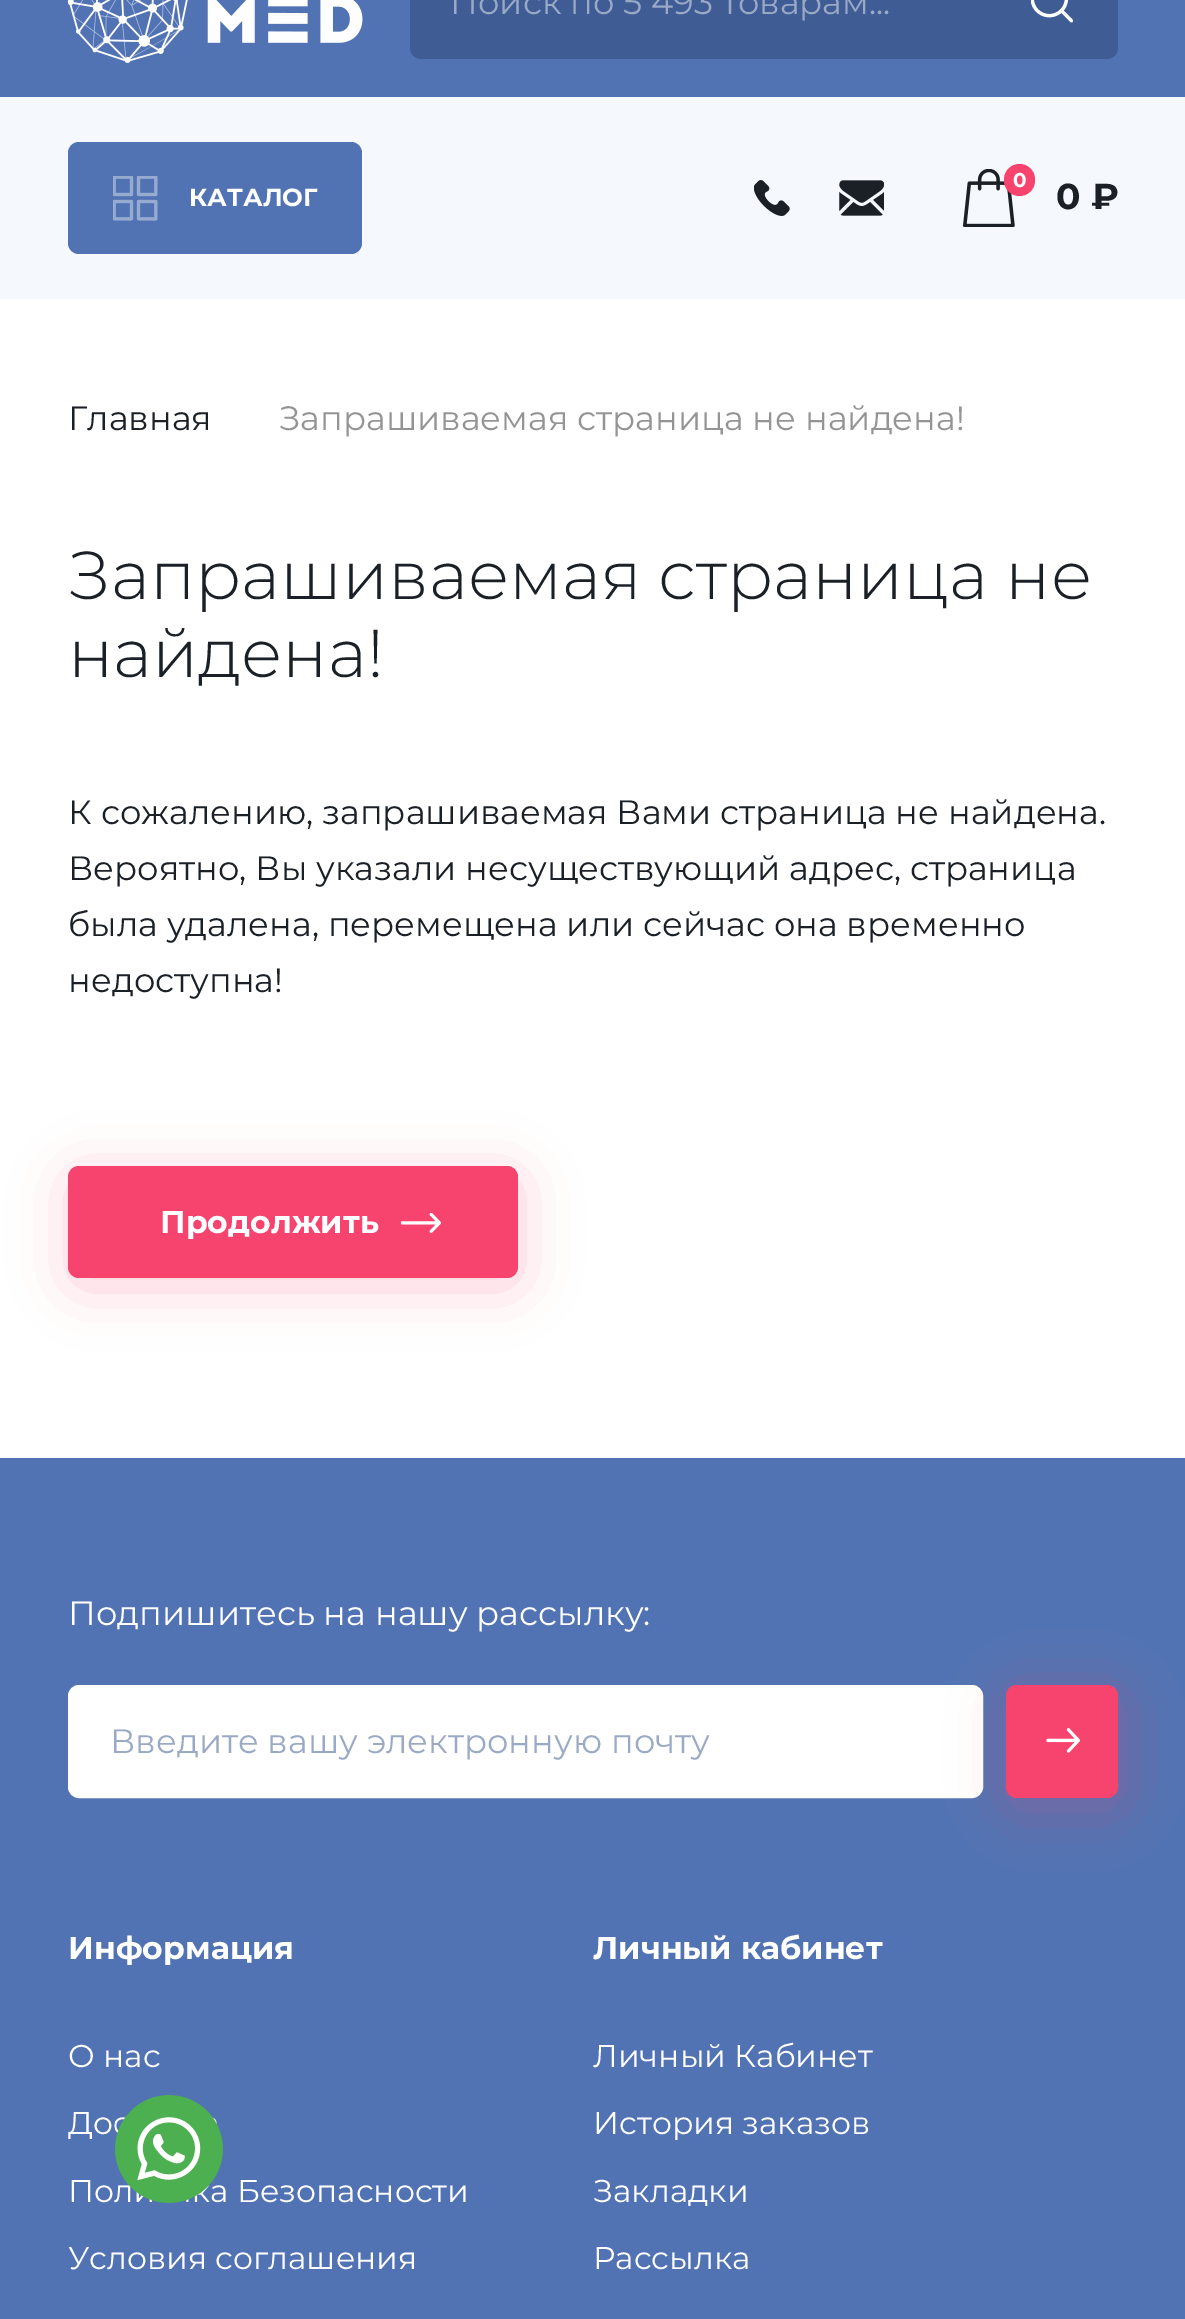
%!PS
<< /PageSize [1185 2319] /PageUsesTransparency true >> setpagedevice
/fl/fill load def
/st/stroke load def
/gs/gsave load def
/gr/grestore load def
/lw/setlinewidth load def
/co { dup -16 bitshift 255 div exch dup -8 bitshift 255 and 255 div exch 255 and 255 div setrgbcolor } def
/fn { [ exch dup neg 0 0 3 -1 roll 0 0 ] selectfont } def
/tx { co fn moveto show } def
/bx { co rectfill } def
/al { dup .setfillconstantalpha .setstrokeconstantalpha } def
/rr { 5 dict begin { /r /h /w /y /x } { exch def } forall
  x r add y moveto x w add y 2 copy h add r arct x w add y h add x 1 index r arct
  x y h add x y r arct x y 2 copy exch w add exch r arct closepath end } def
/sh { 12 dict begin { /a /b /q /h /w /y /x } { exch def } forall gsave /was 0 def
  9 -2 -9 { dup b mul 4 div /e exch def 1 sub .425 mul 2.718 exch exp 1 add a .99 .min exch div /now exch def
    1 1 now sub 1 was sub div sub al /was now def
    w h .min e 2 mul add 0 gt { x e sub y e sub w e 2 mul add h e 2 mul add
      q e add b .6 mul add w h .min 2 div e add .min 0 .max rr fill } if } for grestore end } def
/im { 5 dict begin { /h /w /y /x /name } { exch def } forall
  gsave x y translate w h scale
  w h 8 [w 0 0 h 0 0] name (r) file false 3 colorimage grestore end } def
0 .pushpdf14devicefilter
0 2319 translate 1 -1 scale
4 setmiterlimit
0 0 1185 2319 16#FFFFFF bx
0 0 1185 97 16#5273B3 bx
(media/1.raw) 68 0 295 63 im
16#3F5C94 co
410 -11 708 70 11 rr fl
(media/2.raw) 1031 0 42 23 im
0 97 1185 202 16#F5F8FD bx
16#5273B3 co
68 142 294 112 11 rr fl
(media/3.raw) 113 176 45 45 im
(media/4.raw) 754 180 36 36 im
(media/5.raw) 839 180 45 36 im
(media/6.raw) 963 169 52 58 im
16#F6446F co
1004 164 31 32 15.5 rr fl
70 1175 450 112 11 29 .29 sh
68 1166 450 112 11 rr fl
(media/7.raw) 401 1213 40 20 im
0 1458 1185 861 16#5273B3 bx
16#FFFFFF co
69 1686 913 111 10 rr gs fl gr
2 lw
st
16#F6446F co
1008 1694 113 113 11 29 .29 sh
1006 1685 112 113 11 rr fl
(media/8.raw) 1046 1728 34 25 im
(Поиск по 5 493 товарам...) 450 14 /Montserrat-Regular 33.75 16#9AA9C6 tx
(КАТАЛОГ) 189 206 /Montserrat-Bold 24.75 16#FFFFFF tx
(0) 1013 187 /Montserrat-Bold 20 16#FFFFFF tx
(0 ₽) 1056 209 /Montserrat-Bold 36 16#1A2026 tx
(Главная) 68 430 /Montserrat-Regular 33.75 16#1A2026 tx
(Запрашиваемая страница не найдена!) 279 430 /Montserrat-Regular 33.75 16#949494 tx
(Запрашиваемая страница не) 68 599 /Montserrat-Light 67.5 16#1A2026 tx
(найдена!) 68 677 /Montserrat-Light 67.5 16#1A2026 tx
(К сожалению, запрашиваемая Вами страница не найдена.) 68 824 /Montserrat-Regular 33.75 16#1A2026 tx
(Вероятно, Вы указали несуществующий адрес, страница) 68 880 /Montserrat-Regular 33.75 16#1A2026 tx
(была удалена, перемещена или сейчас она временно) 68 936 /Montserrat-Regular 33.75 16#1A2026 tx
(недоступна!) 68 992 /Montserrat-Regular 33.75 16#1A2026 tx
(Продолжить) 160 1233 /Montserrat-Bold 31.5 16#FFFFFF tx
(Подпишитесь на нашу рассылку:) 68 1625 /Montserrat-Regular 33.75 16#FFFFFF tx
(Введите вашу электронную почту) 110 1753 /Montserrat-Regular 33.75 16#9AA9C6 tx
(Информация) 68 1959 /Montserrat-Bold 31.5 16#FFFFFF tx
(О нас) 68 2067 /Montserrat-Regular 31.5 16#FFFFFF tx
(Дос) 68 2134 /Montserrat-Regular 31.5 16#FFFFFF tx
(Пол) 68 2202 /Montserrat-Regular 31.5 16#FFFFFF tx
(ка Безопасности) 192 2202 /Montserrat-Regular 31.5 16#FFFFFF tx
(Условия соглашения) 68 2269 /Montserrat-Regular 31.5 16#FFFFFF tx
(Личный кабинет) 593 1959 /Montserrat-Bold 31.5 16#FFFFFF tx
(Личный Кабинет) 593 2067 /Montserrat-Regular 31.5 16#FFFFFF tx
(История заказов) 593 2134 /Montserrat-Regular 31.5 16#FFFFFF tx
(Закладки) 593 2202 /Montserrat-Regular 31.5 16#FFFFFF tx
(Рассылка) 593 2269 /Montserrat-Regular 31.5 16#FFFFFF tx
(media/9.raw) 115 2095 108 108 im
.poppdf14devicefilter showpage
